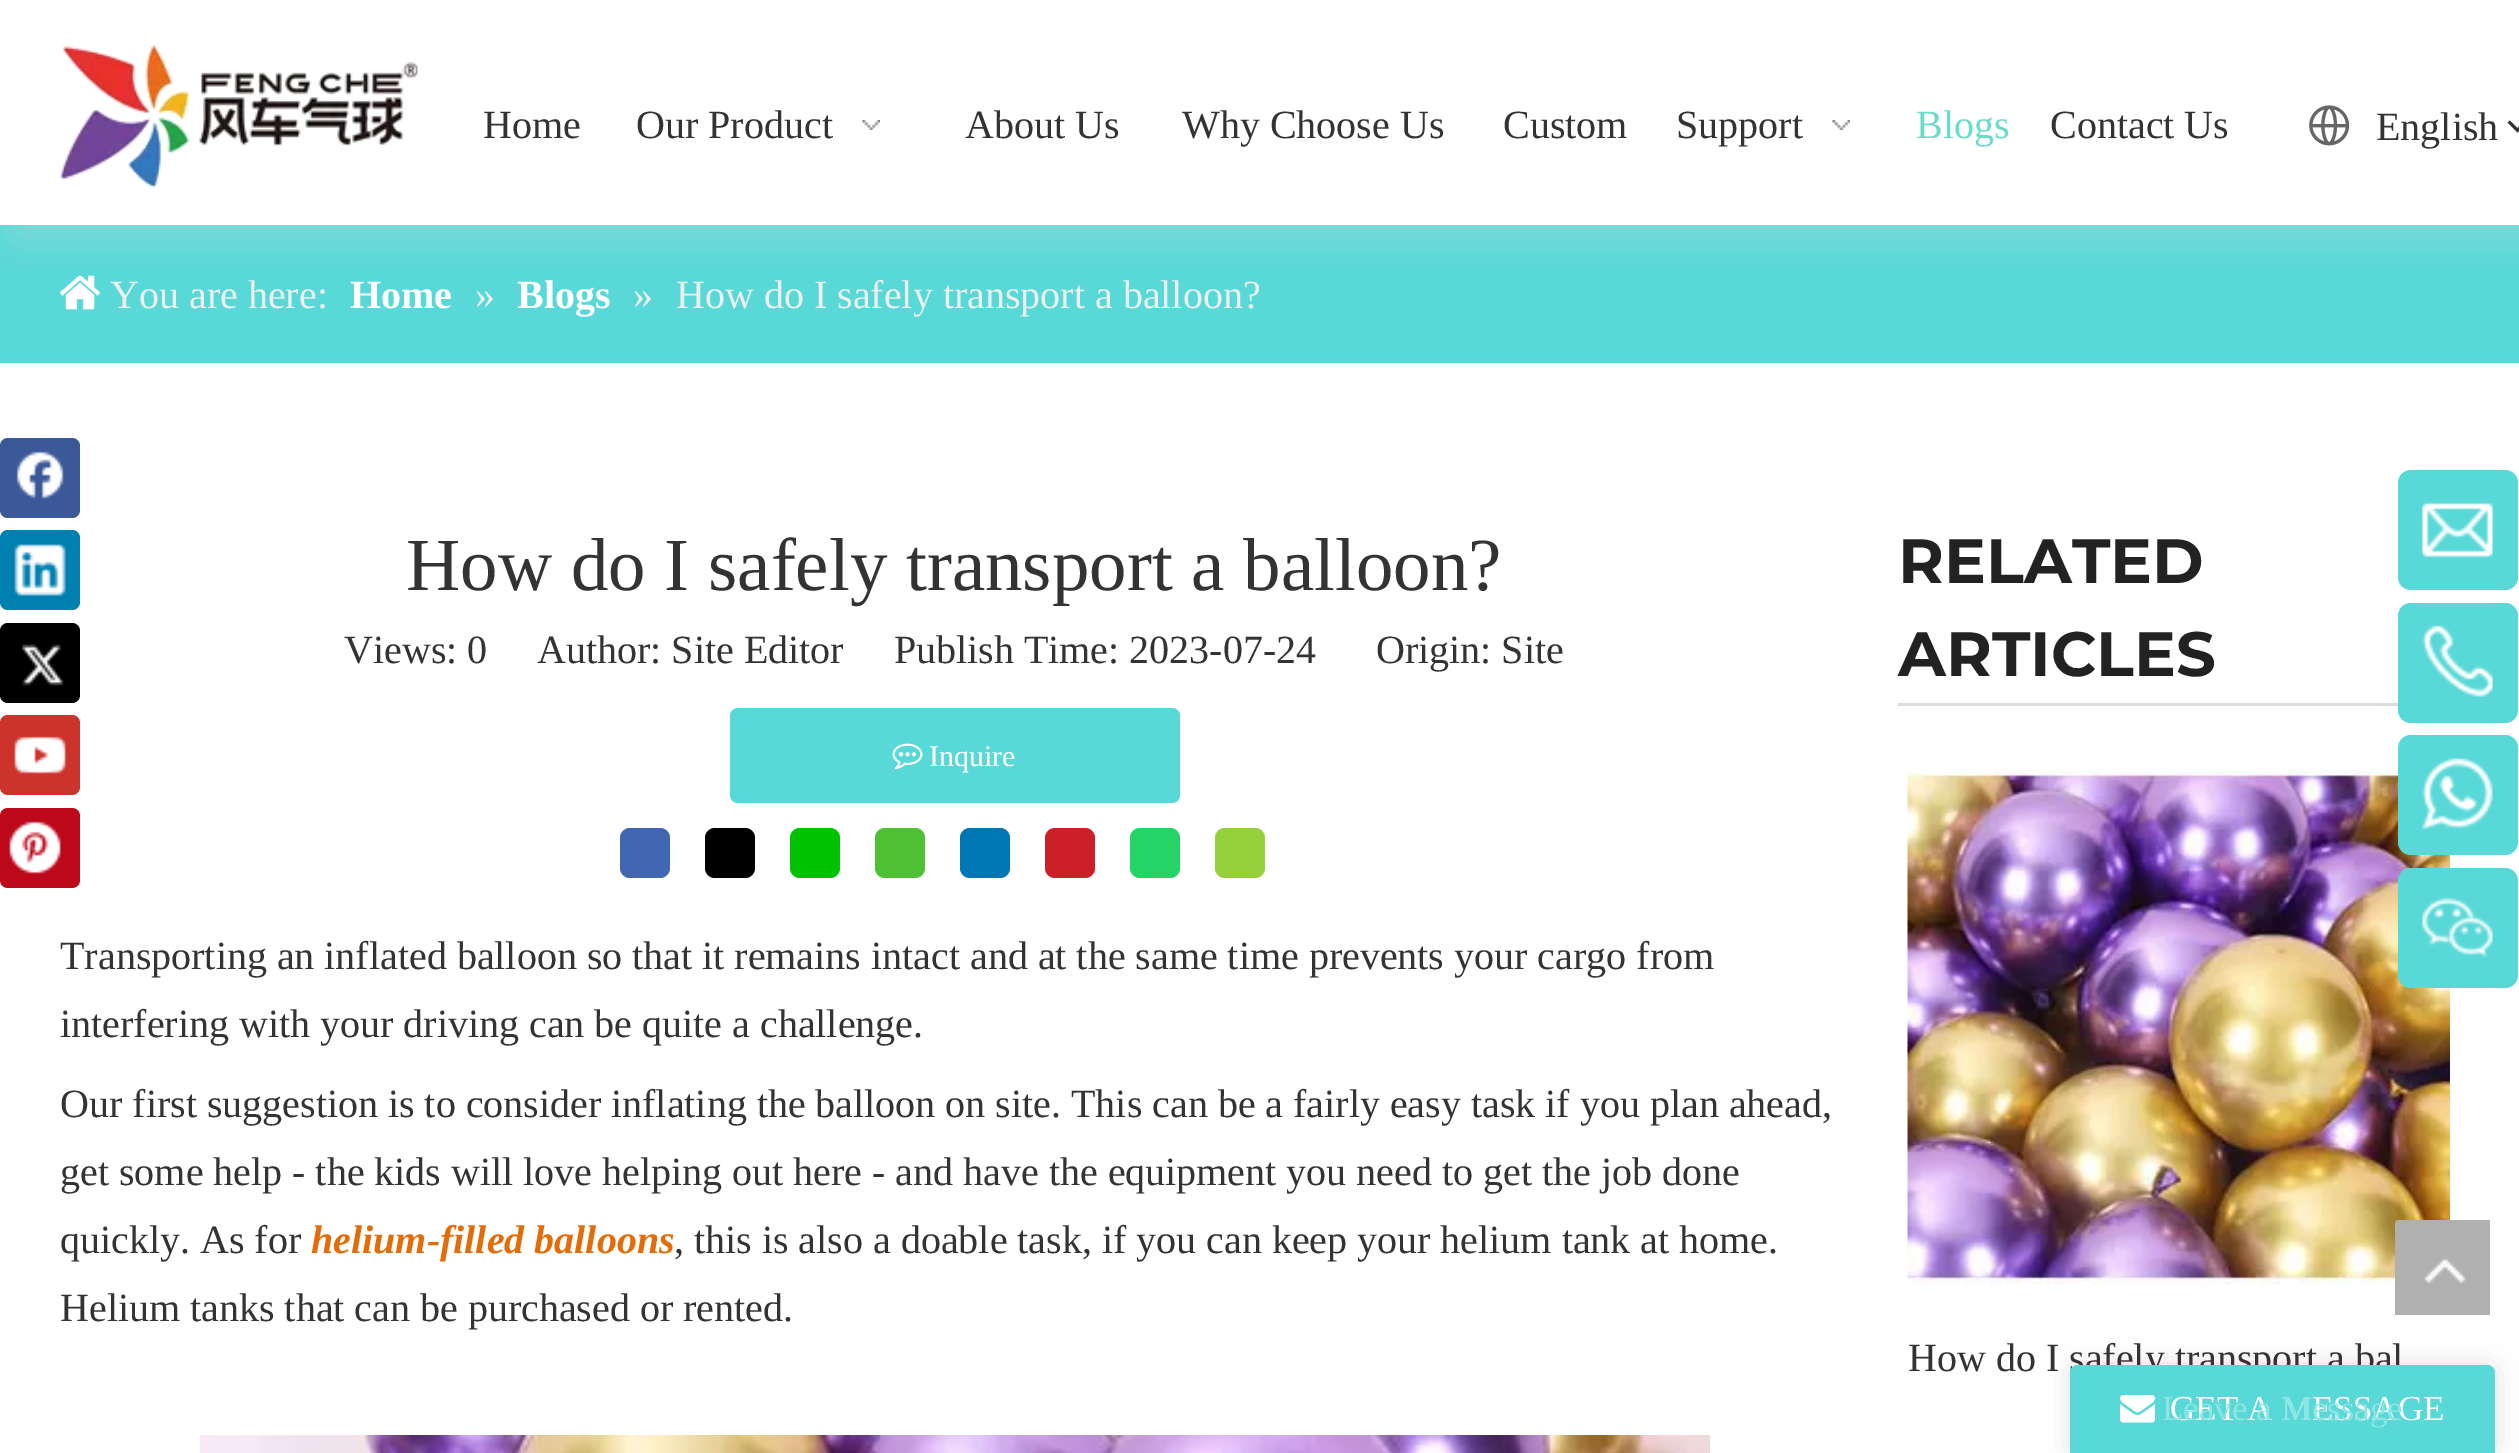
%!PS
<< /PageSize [2519 1453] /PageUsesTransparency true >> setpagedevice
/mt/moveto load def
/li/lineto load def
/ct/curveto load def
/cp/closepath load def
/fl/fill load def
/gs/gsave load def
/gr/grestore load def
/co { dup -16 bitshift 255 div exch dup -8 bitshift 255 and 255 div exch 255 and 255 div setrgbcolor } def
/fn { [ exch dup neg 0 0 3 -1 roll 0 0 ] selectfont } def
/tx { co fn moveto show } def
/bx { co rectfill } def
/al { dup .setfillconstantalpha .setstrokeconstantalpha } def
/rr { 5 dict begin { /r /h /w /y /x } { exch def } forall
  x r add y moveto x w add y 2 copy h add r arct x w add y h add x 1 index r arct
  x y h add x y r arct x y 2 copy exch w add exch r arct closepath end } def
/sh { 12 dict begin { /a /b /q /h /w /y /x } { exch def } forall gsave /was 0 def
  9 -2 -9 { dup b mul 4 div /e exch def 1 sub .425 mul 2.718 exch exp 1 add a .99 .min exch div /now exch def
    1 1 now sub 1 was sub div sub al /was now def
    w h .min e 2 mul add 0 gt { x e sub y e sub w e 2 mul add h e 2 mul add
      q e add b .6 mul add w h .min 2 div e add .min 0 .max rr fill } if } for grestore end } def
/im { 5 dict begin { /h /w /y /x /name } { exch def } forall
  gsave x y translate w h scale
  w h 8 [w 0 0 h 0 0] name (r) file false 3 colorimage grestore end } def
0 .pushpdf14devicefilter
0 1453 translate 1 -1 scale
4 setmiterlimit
0 0 2519 1453 16#FFFFFF bx
0 225 2519 138 16#59D8D8 bx
(media/6.raw) 60 275 40 35 im
gs
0 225 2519 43 rectclip
16#DDDDDD co
18 10 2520 225 0 21 .35 sh
gr
(media/1.raw) 60 45 358 143 im
(media/2.raw) 862 120 18 10 im
(media/3.raw) 1832 120 18 10 im
(media/4.raw) 2309 105 41 41 im
(media/5.raw) 2507 120 12 13 im
730 708 450 95 8 rr fl
(media/7.raw) 892 743 31 27 im
16#4267B2 co
620 828 50 50 10 rr fl
16#000000 co
705 828 50 50 10 rr fl
16#00C300 co
790 828 50 50 10 rr fl
16#4EC034 co
875 828 50 50 10 rr fl
16#0077B5 co
960 828 50 50 10 rr fl
16#CB2027 co
1045 828 50 50 10 rr fl
16#25D366 co
1130 828 50 50 10 rr fl
16#95D03A co
1215 828 50 50 10 rr fl
(media/8.raw) 200 1435 1510 18 im
16#444444 co
2070 1365 425 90 8 12.5 .18 sh
1898 703 500 3 16#DDDDDD bx
(media/10.raw) 1907 769 543 517 im
16#3B5998 co
0 438 80 80 8 rr fl
(media/11.raw) 16 451 48 48 im
16#007FB1 co
0 530 80 80 8 rr fl
(media/12.raw) 14 544 52 52 im
16#000000 co
0 623 80 80 8 rr fl
(media/13.raw) 21 644 43 42 im
16#CD332D co
0 715 80 80 8 rr fl
(media/14.raw) 14 736 52 38 im
16#BD081C co
0 808 80 80 8 rr fl
(media/15.raw) 9 821 52 53 im
16#59D8D8 co
2398 470 120 120 13 rr fl
(media/16.raw) 2422 502 71 56 im
2398 603 120 120 13 rr fl
(media/17.raw) 2422 625 71 72 im
2398 735 120 120 13 rr fl
(media/18.raw) 2422 758 71 72 im
2398 868 120 120 13 rr fl
(media/19.raw) 2422 897 71 61 im
(media/20.raw) 2395 1220 95 95 im
(Home) 483 138 /LiberationSerif-Regular 40 16#333333 tx
(Our Product) 636 138 /LiberationSerif-Regular 40 16#333333 tx
(About Us) 965 138 /LiberationSerif-Regular 40 16#333333 tx
(Why Choose Us) 1182 138 /LiberationSerif-Regular 40 16#333333 tx
(Custom) 1503 138 /LiberationSerif-Regular 40 16#333333 tx
(Support) 1676 138 /LiberationSerif-Regular 40 16#333333 tx
(Blogs) 1916 138 /LiberationSerif-Regular 40 16#69DBC9 tx
(Contact Us) 2050 138 /LiberationSerif-Regular 40 16#333333 tx
(English) 2376 140 /LiberationSerif-Regular 40 16#333333 tx
(You are here:) 110 308 /LiberationSerif-Regular 40 16#EEEEEE tx
(Home) 350 308 /LiberationSerif-Bold 40 16#FFFFFF tx
(») 475 308 /LiberationSerif-Regular 40 16#EEEEEE tx
(Blogs) 517 308 /LiberationSerif-Bold 40 16#FFFFFF tx
(») 633 308 /LiberationSerif-Regular 40 16#EEEEEE tx
(How do I safely transport a balloon?) 676 308 /LiberationSerif-Regular 40 16#EEEEEE tx
(How do I safely transport a balloon?) 406 590 /LiberationSerif-Regular 75 16#333333 tx
(Views: 0) 344 663 /LiberationSerif-Regular 40 16#333333 tx
(Author: Site Editor     Publish Time: 2023-07-24      Origin: Site) 537 663 /LiberationSerif-Regular 40 16#333333 tx
(Inquire) 929 766 /LiberationSerif-Regular 30 16#FFFFFF tx
(Transporting an inflated balloon so that it remains intact and at the same time prevents your cargo from) 60 969 /LiberationSerif-Regular 40 16#333333 tx
(interfering with your driving can be quite a challenge.) 60 1037 /LiberationSerif-Regular 40 16#333333 tx
(Our first suggestion is to consider inflating the balloon on site. This can be a fairly easy task if you plan ahead,) 60 1117 /LiberationSerif-Regular 40 16#333333 tx
(get some help - the kids will love helping out here - and have the equipment you need to get the job done) 60 1185 /LiberationSerif-Regular 40 16#333333 tx
(quickly. As for) 60 1253 /LiberationSerif-Regular 40 16#333333 tx
(helium-filled balloons) 311 1253 /LiberationSerif-BoldItalic 40 16#E36C09 tx
(, this is also a doable task, if you can keep your helium tank at home.) 674 1253 /LiberationSerif-Regular 40 16#333333 tx
(Helium tanks that can be purchased or rented.) 60 1321 /LiberationSerif-Regular 40 16#333333 tx
(RELATED) 1898 583 /Montserrat-Thin 62.5 16#222222 tx
(ARTICLES) 1898 676 /Montserrat-Thin 62.5 16#222222 tx
(How do I safely transport a bal) 1908 1371 /LiberationSerif-Regular 40 16#333333 tx
16#59D8D8 co
2078 1365 mt 2487 1365 li 2491.5 1365 2495 1368.5 2495 1373 ct 2495 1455 li 2070 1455 li 2070 1373 li 2070 1368.5 2073.5 1365 2078 1365 ct cp fl
(GET A MESSAGE) 2170 1420 /LiberationSerif-Regular 35 16#FFFFFF tx
(Leave a Message) 2162 1420 /LiberationSerif-Regular 35 16#8DE4E4 tx
(media/9.raw) 2120 1395 35 28 im
.poppdf14devicefilter showpage
